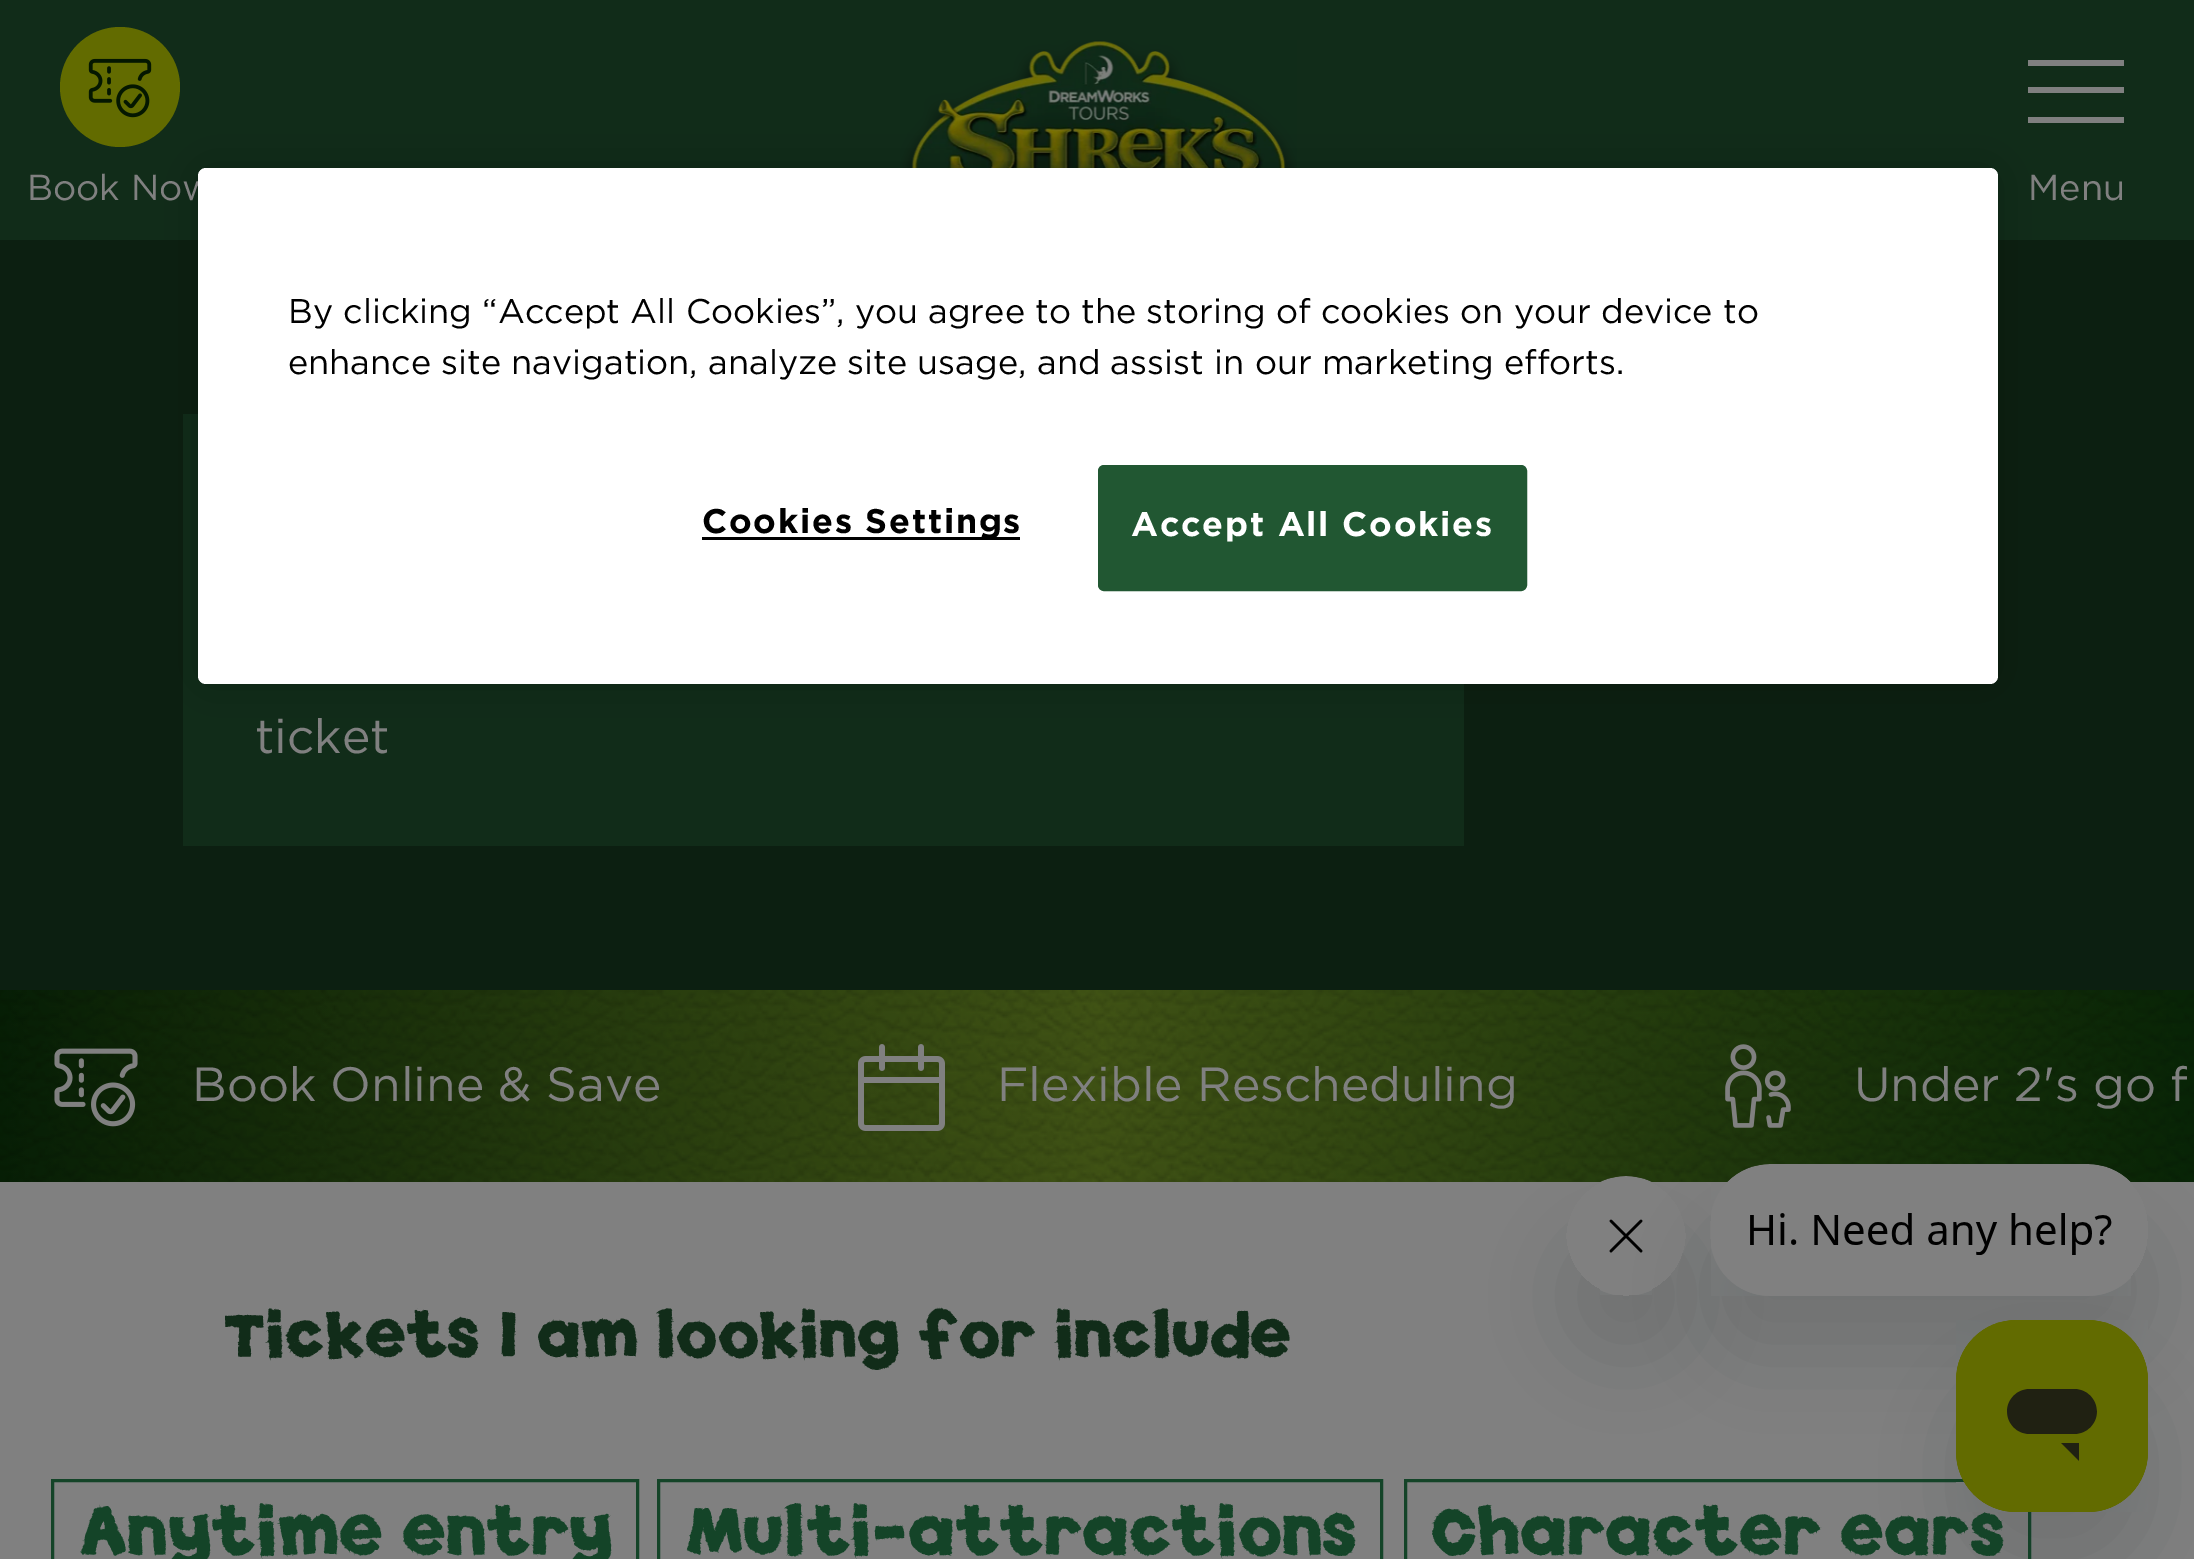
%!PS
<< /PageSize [2194 1559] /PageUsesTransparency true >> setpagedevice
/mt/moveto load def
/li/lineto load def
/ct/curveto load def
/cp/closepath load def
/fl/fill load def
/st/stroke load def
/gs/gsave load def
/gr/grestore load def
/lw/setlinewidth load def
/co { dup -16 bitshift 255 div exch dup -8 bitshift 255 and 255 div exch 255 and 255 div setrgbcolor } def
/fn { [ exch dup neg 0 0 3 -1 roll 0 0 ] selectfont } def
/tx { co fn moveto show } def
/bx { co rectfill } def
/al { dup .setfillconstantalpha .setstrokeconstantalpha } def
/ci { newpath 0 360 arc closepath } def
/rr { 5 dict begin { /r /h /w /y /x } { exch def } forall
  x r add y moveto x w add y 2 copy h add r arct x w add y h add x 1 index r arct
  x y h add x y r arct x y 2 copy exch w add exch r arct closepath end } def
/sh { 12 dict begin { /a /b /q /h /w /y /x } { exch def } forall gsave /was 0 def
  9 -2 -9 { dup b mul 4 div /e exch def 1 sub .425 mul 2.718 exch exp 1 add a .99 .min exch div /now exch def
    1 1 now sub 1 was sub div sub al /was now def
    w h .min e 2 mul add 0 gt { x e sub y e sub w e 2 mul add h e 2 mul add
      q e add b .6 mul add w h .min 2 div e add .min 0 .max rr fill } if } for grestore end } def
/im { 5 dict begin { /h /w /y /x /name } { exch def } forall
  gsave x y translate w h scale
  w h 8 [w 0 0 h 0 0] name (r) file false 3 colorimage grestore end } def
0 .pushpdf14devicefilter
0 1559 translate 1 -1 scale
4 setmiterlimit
0 0 2194 1559 16#808080 bx
16#112C19 co
-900 -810 mt -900 1182 li 0 1182 li 0 990 li 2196 990 li 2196 1182 li 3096 1182 li 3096 -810 li cp fl
(media/1.raw) 900 40 397 128 im
16#626B00 co
120 87 60 ci fl
(media/2.raw) 88 58 64 60 im
2028 60 96 6 16#808080 bx
2028 87 96 6 16#808080 bx
2028 117 96 6 16#808080 bx
0 240 2194 750 16#0C1F11 bx
183 414 1281 432 16#112C19 bx
16#000000 co
198 168 1800 516 8 27 .2 sh
(media/3.raw) 0 990 2194 192 im
(media/4.raw) 54 1048 84 79 im
(media/5.raw) 858 1044 87 87 im
(media/6.raw) 1725 1044 66 84 im
16#144428 co
3 lw
52.5 1480.5 585 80 rectstroke
658.5 1480.5 723 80 rectstroke
1405.5 1480.5 624 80 rectstroke
gs
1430 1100 mt 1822 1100 li 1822 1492 li 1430 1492 li cp 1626 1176 mt 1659 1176 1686 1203 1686 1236 ct 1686 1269 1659 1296 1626 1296 ct 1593 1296 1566 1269 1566 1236 ct 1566 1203 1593 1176 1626 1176 ct cp eoclip newpath
16#0C2527 co
1566 1236 120 120 60 45 .15 sh
gr
(media/8.raw) 1600 1176 52 119 im
gs
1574 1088 mt 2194 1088 li 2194 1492 li 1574 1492 li cp 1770 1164 mt 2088 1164 li 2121 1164 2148 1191 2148 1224 ct 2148 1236 li 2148 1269 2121 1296 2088 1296 ct 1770 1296 li 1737 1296 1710 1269 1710 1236 ct 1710 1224 li 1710 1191 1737 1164 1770 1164 ct cp eoclip newpath
16#0C2527 co
1710 1224 438 132 60 45 .15 sh
gr
(media/7.raw) 1711 1164 420 132 im
16#0C2527 co
1956 1380 192 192 60 45 .15 sh
(Book Now) 27 200 /Gotham-Regular 36 16#808080 tx
(Menu) 2028 200 /Gotham-Regular 36 16#808080 tx
16#FFFFFF co
198 168 1800 516 8 rr fl
(By clicking “Accept All Cookies”, you agree to the storing of cookies on your device to) 288 323 /Gotham-Regular 34.15 16#000000 tx
(enhance site navigation, analyze site usage, and assist in our marketing efforts.) 288 374 /Gotham-Regular 34.15 16#000000 tx
702 537 318 3 16#000000 bx
/Gotham-Bold 34.15 fn
702 533 mt 1.75 0 (Cookies Settings) ashow
16#215732 co
1099.5 466.5 426 123 4.5 rr gs fl gr
st
16#FFFFFF co
1131 536 mt 1.75 0 (Accept All Cookies) ashow
(ticket) 255 753 /Gotham-Regular 48 16#808080 tx
(Book Online & Save) 192 1101 /Gotham-Regular 48 16#808080 tx
(Flexible Rescheduling) 997 1101 /Gotham-Regular 48 16#808080 tx
(Under 2's go f) 1854 1101 /Gotham-Regular 48 16#808080 tx
(Tickets I am looking for include) 223 1356 /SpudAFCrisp-Bold 56.2 16#112C19 tx
(Anytime entry) 79 1554 /SpudAFCrisp-Bold 60 16#144428 tx
(Multi-attractions) 685 1554 /SpudAFCrisp-Bold 60 16#144428 tx
(Character ears) 1430 1554 /SpudAFCrisp-Bold 60 16#144428 tx
(media/9.raw) 1956 1320 192 192 im
.poppdf14devicefilter showpage
